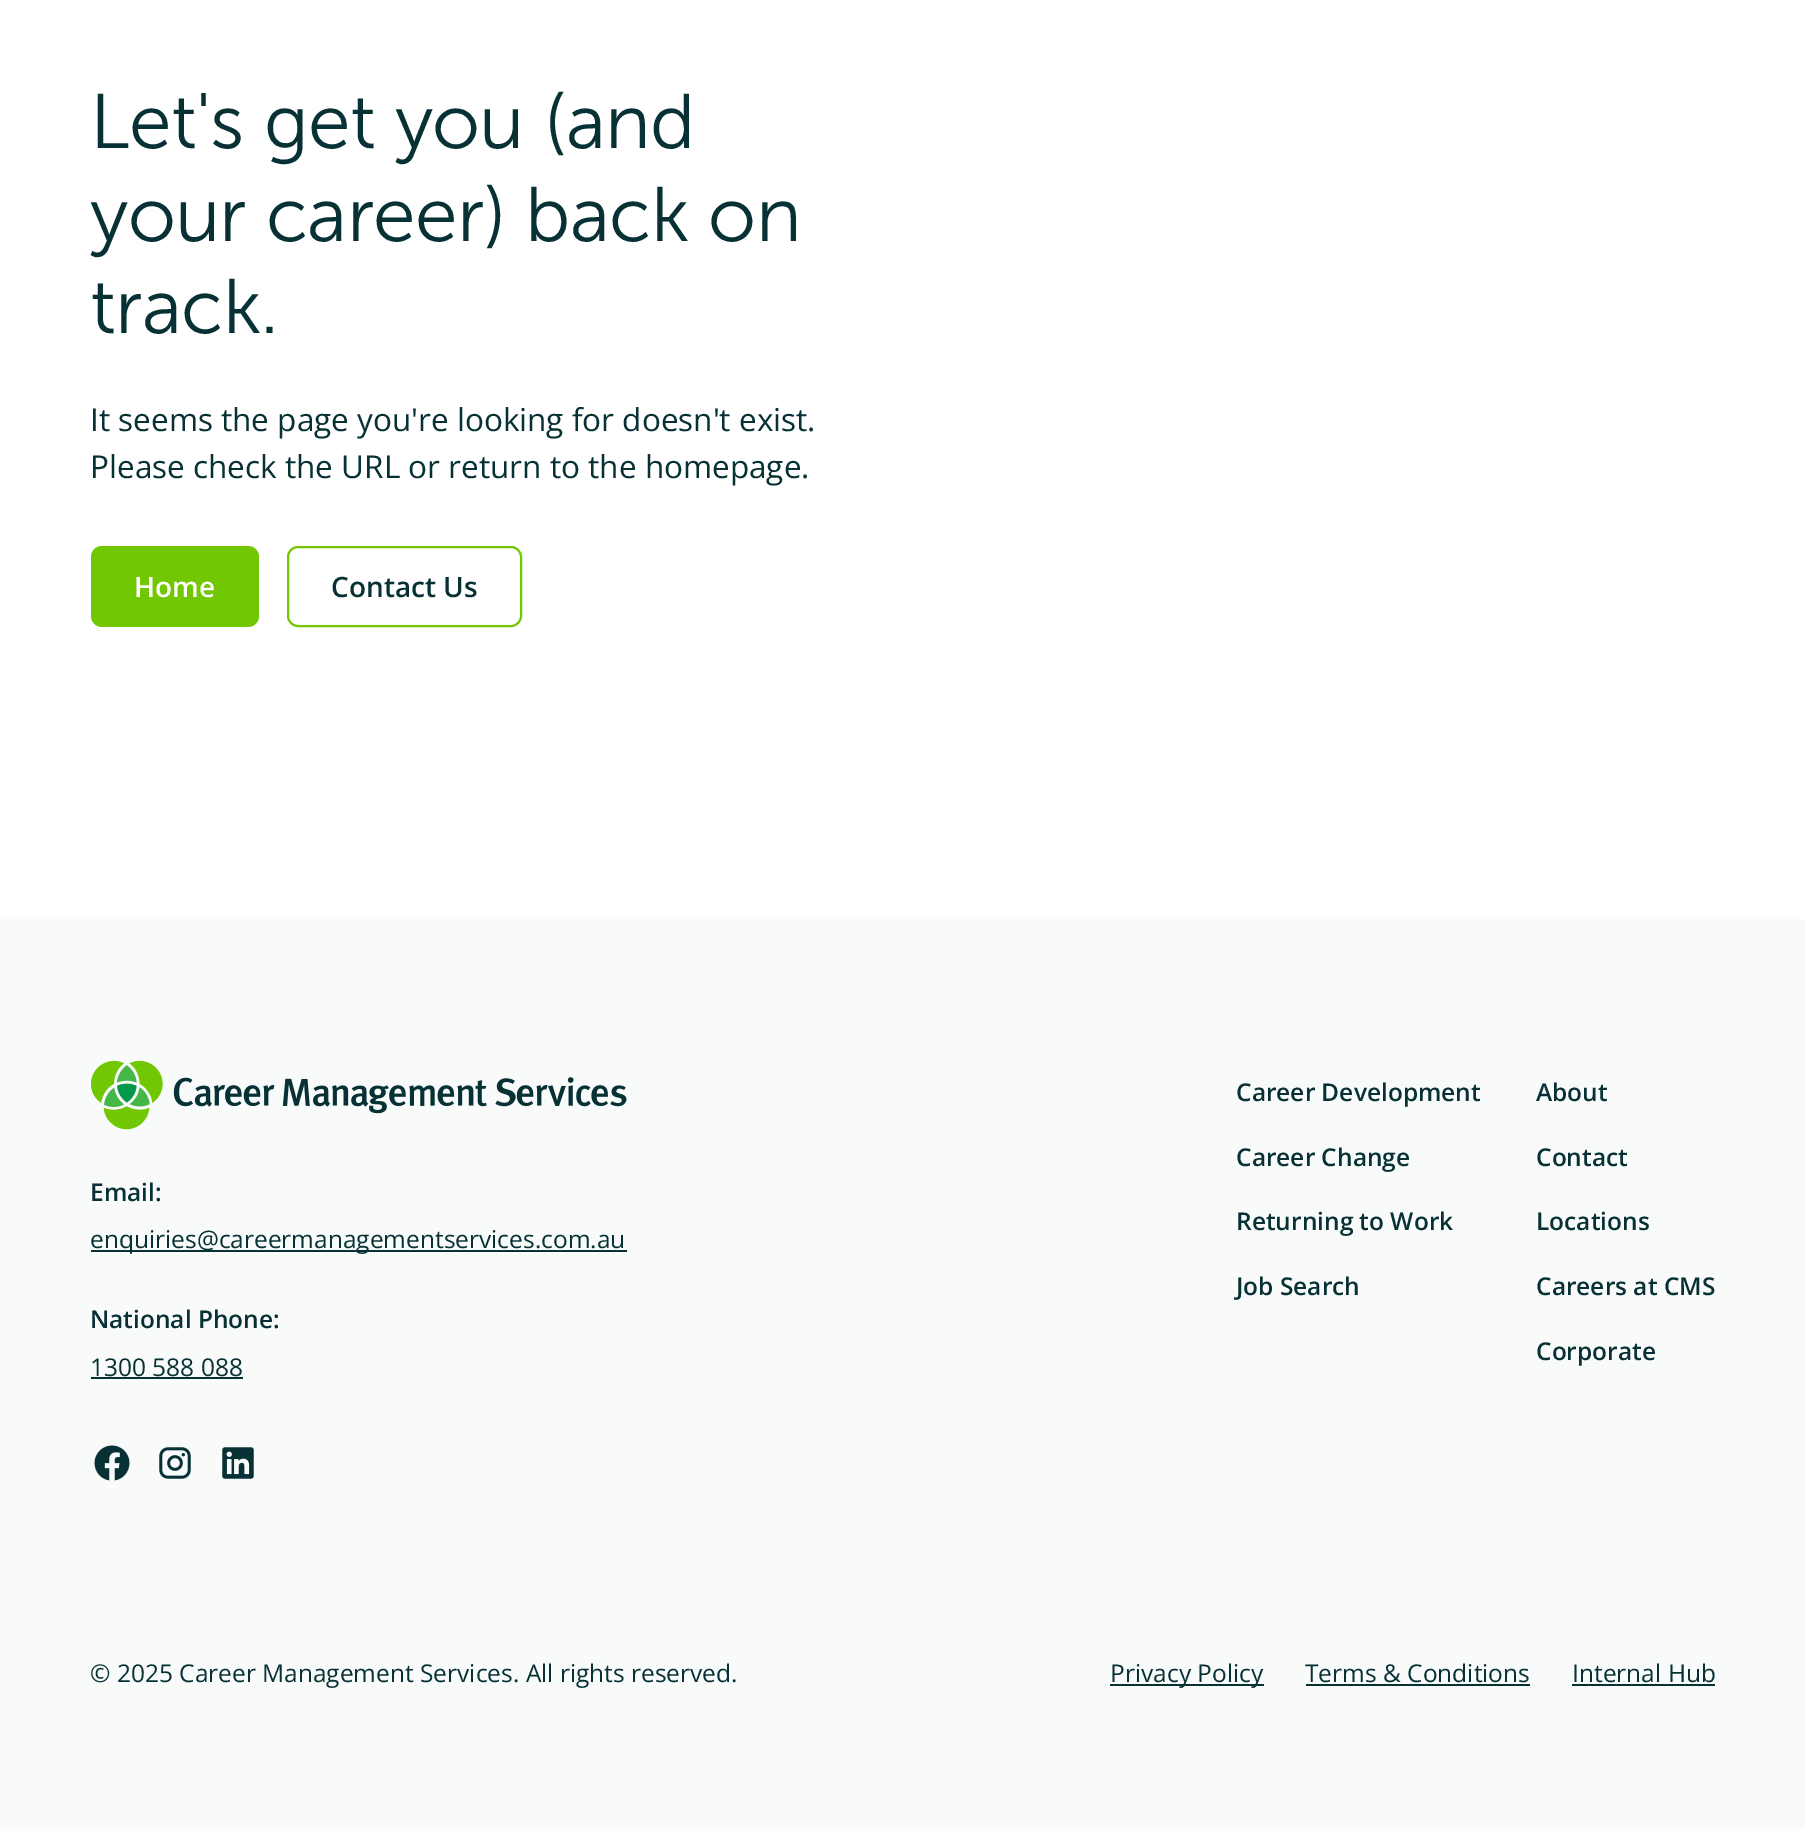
%!PS
<< /PageSize [1805 1829] >> setpagedevice
/mt/moveto load def
/fl/fill load def
/st/stroke load def
/lw/setlinewidth load def
/co { dup -16 bitshift 255 div exch dup -8 bitshift 255 and 255 div exch 255 and 255 div setrgbcolor } def
/fn { [ exch dup neg 0 0 3 -1 roll 0 0 ] selectfont } def
/tx { co fn moveto show } def
/bx { co rectfill } def
/rr { 5 dict begin { /r /h /w /y /x } { exch def } forall
  x r add y moveto x w add y 2 copy h add r arct x w add y h add x 1 index r arct
  x y h add x y r arct x y 2 copy exch w add exch r arct closepath end } def
/im { 5 dict begin { /h /w /y /x /name } { exch def } forall
  gsave x y translate w h scale
  w h 8 [w 0 0 h 0 0] name (r) file false 3 colorimage grestore end } def
0 1829 translate 1 -1 scale
4 setmiterlimit
0 0 1805 1829 16#FFFFFF bx
16#70C702 co
91 546 168 81 11 rr fl
2 lw
288 547 233 79 10 rr st
0 919 1805 910 16#F9FBFB bx
(media/1.raw) 91 1060 536 70 im
91 1250 536 2 16#073135 bx
91 1377 152 2 16#073135 bx
(media/2.raw) 94 1445 36 36 im
(media/3.raw) 159 1447 32 32 im
(media/4.raw) 222 1447 32 32 im
1110 1684 154 2 16#073135 bx
1306 1684 224 2 16#073135 bx
1572 1684 143 2 16#073135 bx
/MuseoSans-Light 77 fn
90 148 mt -.75 0 (Let's get you \(and) ashow
90 241 mt -.75 0 (your career\) back on) ashow
90 333 mt -.75 0 (track.) ashow
(It seems the page you're looking for doesn't exist.) 90 431 /OpenSans-Regular 31.5 16#073135 tx
(Please check the URL or return to the homepage.) 90 478 /OpenSans-Regular 31.5 16#073135 tx
(Home) 134 597 /OpenSans-SemiBold 28 16#FFFFFF tx
(Contact Us) 331 597 /OpenSans-SemiBold 28 16#073135 tx
(Email:) 90 1201 /OpenSans-SemiBold 24.5 16#073135 tx
(enquiries@careermanagementservices.com.au) 90 1248 /OpenSans-Regular 24.5 16#073135 tx
(National Phone:) 90 1328 /OpenSans-SemiBold 24.5 16#073135 tx
(1300 588 088) 90 1376 /OpenSans-Regular 24.5 16#073135 tx
(Career Development) 1236 1101 /OpenSans-SemiBold 24.5 16#073135 tx
(Career Change) 1236 1166 /OpenSans-SemiBold 24.5 16#073135 tx
(Returning to Work) 1236 1230 /OpenSans-SemiBold 24.5 16#073135 tx
(Job Search) 1236 1295 /OpenSans-SemiBold 24.5 16#073135 tx
(About) 1536 1101 /OpenSans-SemiBold 24.5 16#073135 tx
(Contact) 1536 1166 /OpenSans-SemiBold 24.5 16#073135 tx
(Locations) 1536 1230 /OpenSans-SemiBold 24.5 16#073135 tx
(Careers at CMS) 1536 1295 /OpenSans-SemiBold 24.5 16#073135 tx
(Corporate) 1536 1360 /OpenSans-SemiBold 24.5 16#073135 tx
(© 2025 Career Management Services. All rights reserved.) 90 1682 /OpenSans-Regular 24.5 16#073135 tx
(Privacy Policy) 1110 1682 /OpenSans-Regular 24.5 16#073135 tx
(Terms & Conditions) 1305 1682 /OpenSans-Regular 24.5 16#073135 tx
(Internal Hub) 1572 1682 /OpenSans-Regular 24.5 16#073135 tx
showpage
